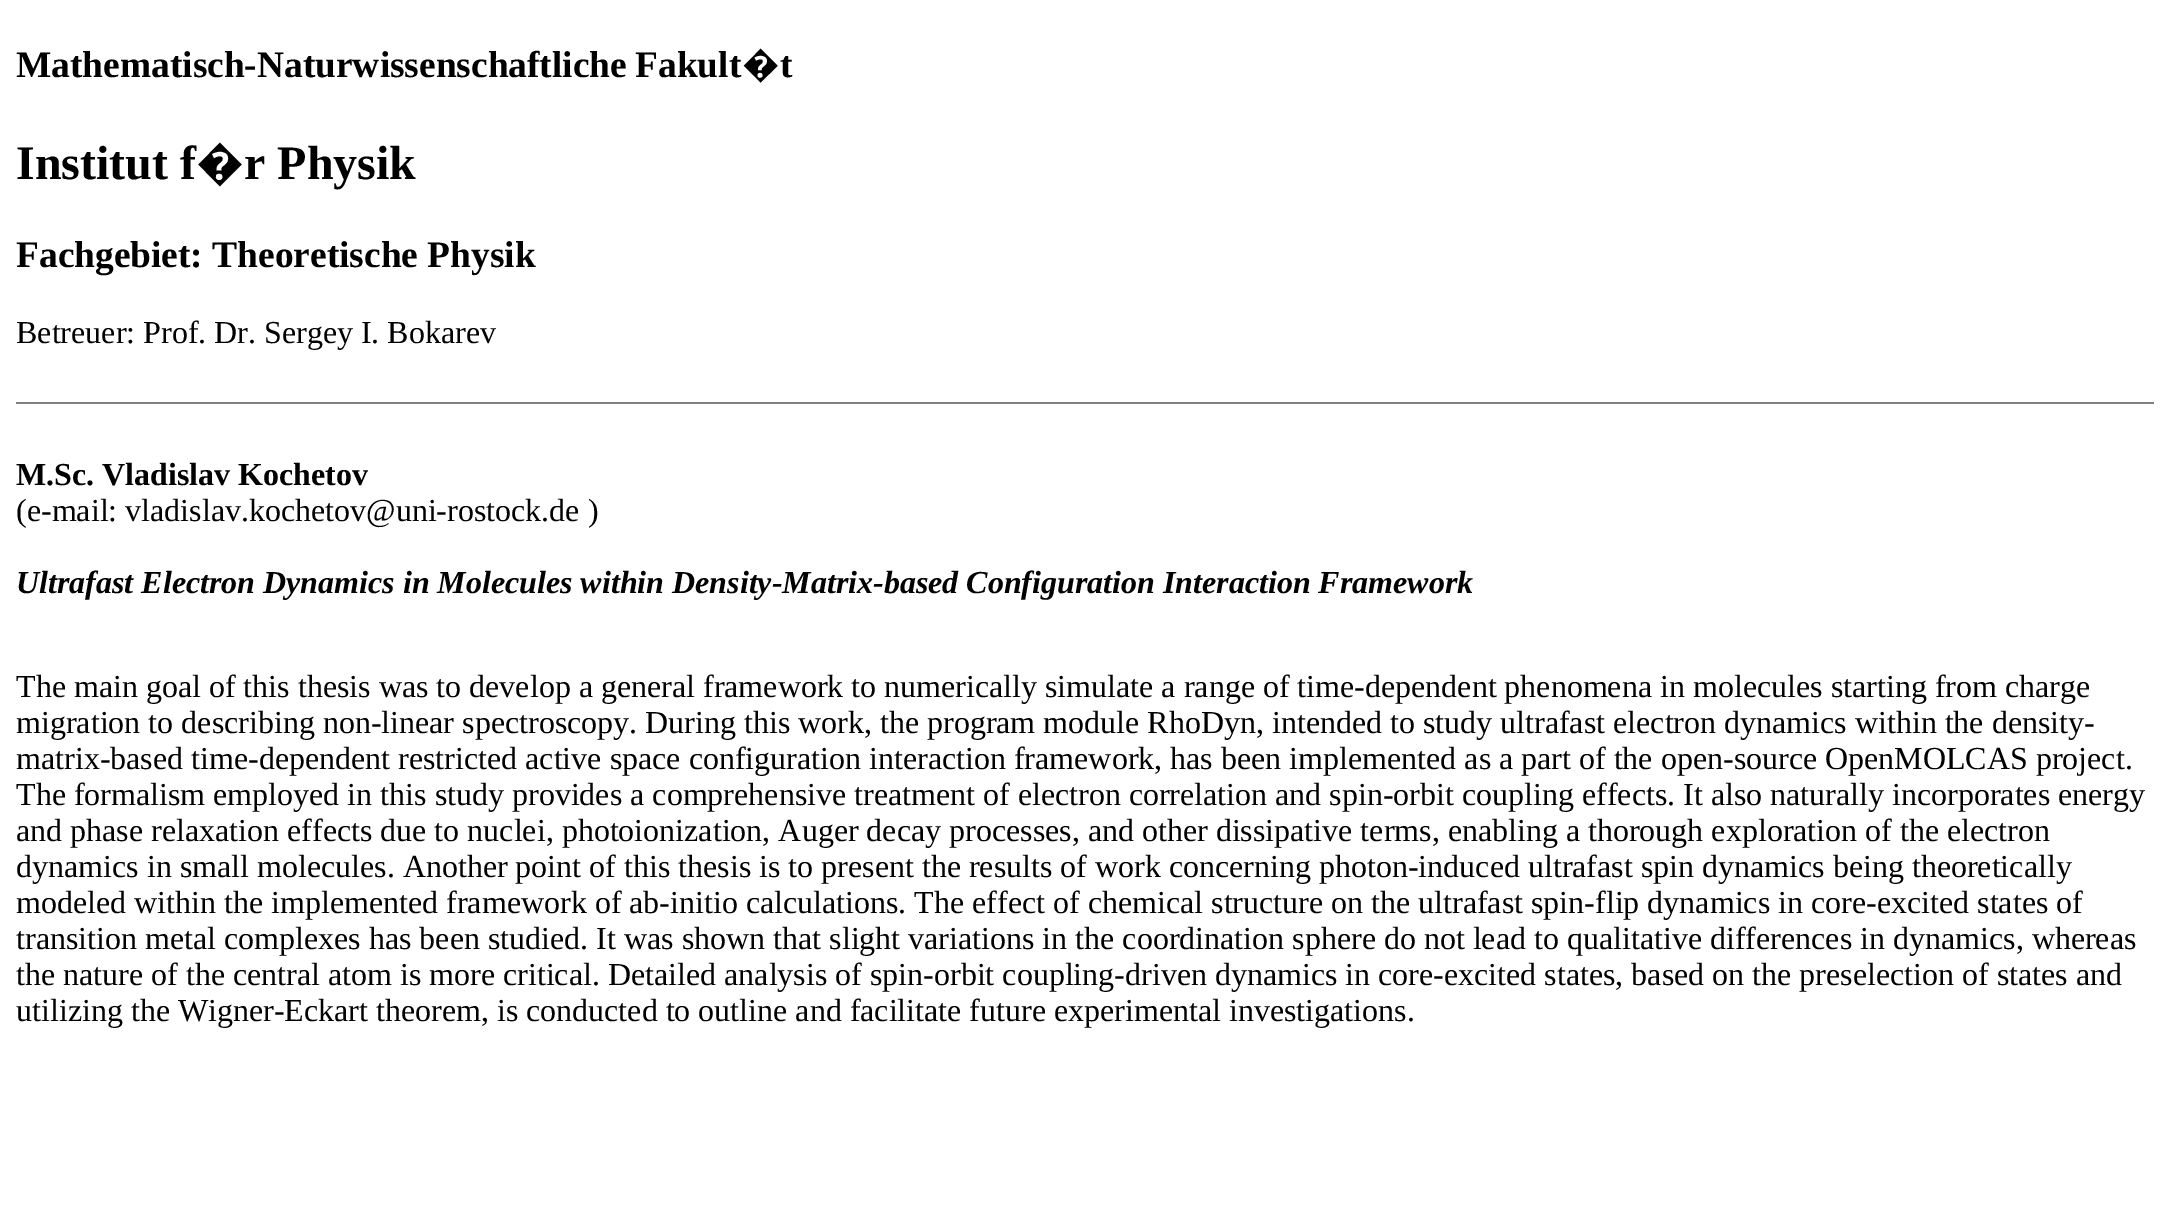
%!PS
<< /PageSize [2170 1215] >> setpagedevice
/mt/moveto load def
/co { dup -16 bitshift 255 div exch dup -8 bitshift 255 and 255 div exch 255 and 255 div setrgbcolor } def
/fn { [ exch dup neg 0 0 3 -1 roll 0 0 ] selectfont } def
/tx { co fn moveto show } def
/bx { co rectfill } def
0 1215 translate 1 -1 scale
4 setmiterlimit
0 0 2170 1215 16#FFFFFF bx
16 402 2138 2 16#808080 bx
/LiberationSerif-Bold 37.4 fn
16#000000 co
16 77 mt -1 0 32 (Mathematisch-Naturwissenschaftliche Fakult) widthshow
(�) 742 77 /NotoSans-Bold 37.4 16#000000 tx
(t) 780 77 /LiberationSerif-Bold 37.4 16#000000 tx
(Institut f) 16 179 /LiberationSerif-Bold 48 16#000000 tx
(�) 196 179 /NotoSans-Bold 48 16#000000 tx
(r Physik) 244 179 /LiberationSerif-Bold 48 16#000000 tx
(Fachgebiet: Theoretische Physik) 16 267 /LiberationSerif-Bold 37.4 16#000000 tx
(Betreuer: Prof. Dr. Sergey I. Bokarev) 16 343 /LiberationSerif-Regular 32 16#000000 tx
(M.Sc. Vladislav Kochetov) 16 485 /LiberationSerif-Bold 32 16#000000 tx
(\(e-mail: vladislav.kochetov@uni-rostock.de \)) 16 521 /LiberationSerif-Regular 32 16#000000 tx
(Ultrafast Electron Dynamics in Molecules within Density-Matrix-based Configuration Interaction Framework) 16 593 /LiberationSerif-BoldItalic 32 16#000000 tx
(The main goal of this thesis was to develop a general framework to numerically simulate a range of time-dependent phenomena in molecules starting from charge) 16 697 /LiberationSerif-Regular 32 16#000000 tx
(migration to describing non-linear spectroscopy. During this work, the program module RhoDyn, intended to study ultrafast electron dynamics within the density-) 16 733 /LiberationSerif-Regular 32 16#000000 tx
(matrix-based time-dependent restricted active space configuration interaction framework, has been implemented as a part of the open-source OpenMOLCAS project.) 16 769 /LiberationSerif-Regular 32 16#000000 tx
(The formalism employed in this study provides a comprehensive treatment of electron correlation and spin-orbit coupling effects. It also naturally incorporates energy) 16 805 /LiberationSerif-Regular 32 16#000000 tx
(and phase relaxation effects due to nuclei, photoionization, Auger decay processes, and other dissipative terms, enabling a thorough exploration of the electron) 16 841 /LiberationSerif-Regular 32 16#000000 tx
(dynamics in small molecules. Another point of this thesis is to present the results of work concerning photon-induced ultrafast spin dynamics being theoretically) 16 877 /LiberationSerif-Regular 32 16#000000 tx
(modeled within the implemented framework of ab-initio calculations. The effect of chemical structure on the ultrafast spin-flip dynamics in core-excited states of) 16 913 /LiberationSerif-Regular 32 16#000000 tx
(transition metal complexes has been studied. It was shown that slight variations in the coordination sphere do not lead to qualitative differences in dynamics, whereas) 16 949 /LiberationSerif-Regular 32 16#000000 tx
(the nature of the central atom is more critical. Detailed analysis of spin-orbit coupling-driven dynamics in core-excited states, based on the preselection of states and) 16 985 /LiberationSerif-Regular 32 16#000000 tx
(utilizing the Wigner-Eckart theorem, is conducted to outline and facilitate future experimental investigations.) 16 1021 /LiberationSerif-Regular 32 16#000000 tx
showpage
